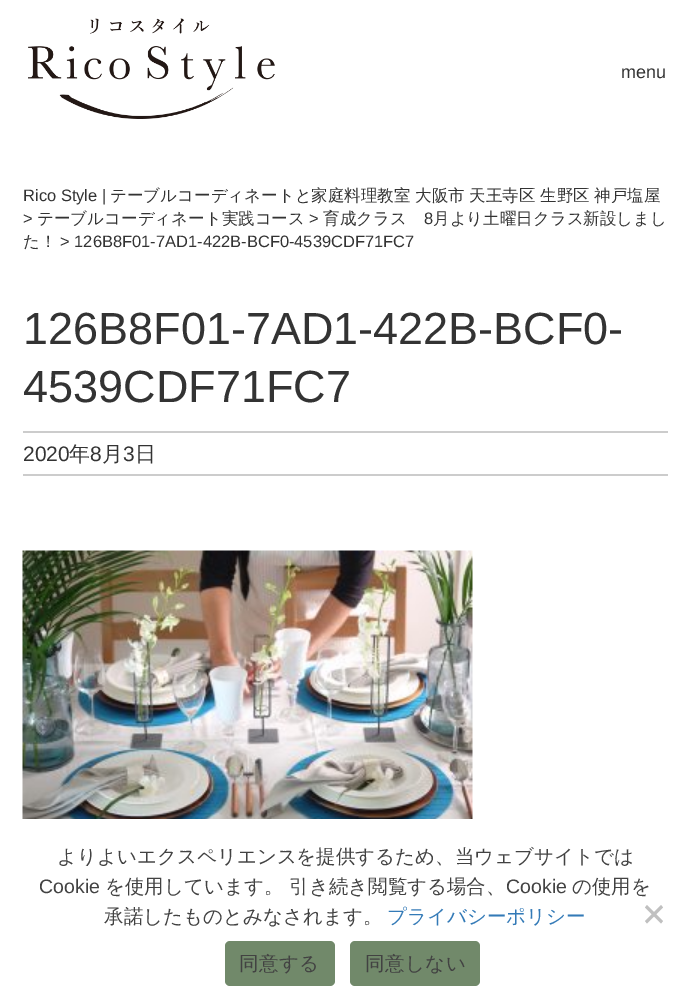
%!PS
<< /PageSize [690 1007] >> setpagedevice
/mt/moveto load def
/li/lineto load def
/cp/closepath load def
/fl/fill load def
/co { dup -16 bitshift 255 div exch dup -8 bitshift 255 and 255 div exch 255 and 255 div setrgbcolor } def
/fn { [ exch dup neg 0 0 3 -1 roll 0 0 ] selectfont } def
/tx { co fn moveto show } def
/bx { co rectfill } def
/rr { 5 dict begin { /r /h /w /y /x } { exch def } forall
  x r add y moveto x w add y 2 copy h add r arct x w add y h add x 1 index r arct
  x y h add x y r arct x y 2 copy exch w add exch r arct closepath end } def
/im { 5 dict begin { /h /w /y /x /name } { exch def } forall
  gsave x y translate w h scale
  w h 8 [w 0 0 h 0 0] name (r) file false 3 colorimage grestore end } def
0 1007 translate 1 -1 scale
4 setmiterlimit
0 0 690 1007 16#FFFFFF bx
(media/1.raw) 28 18 247 101 im
23 431 645 2 16#CCCCCC bx
23 474 645 2 16#CCCCCC bx
(media/2.raw) 22 550 451 269 im
16#C0C0C0 co
661 905 mt 663 907.5 li 647 923.5 li 645 921 li cp fl
645 907.5 mt 647 905 li 663 921 li 661 923.5 li cp fl
16#71896A co
225 941 110 45 5 rr fl
350 941 130 45 5 rr fl
(menu) 621 78 /LiberationSans-Regular 18 16#333333 tx
(Rico Style |) 23 201 /LiberationSans-Regular 16.5 16#333333 tx
(テーブルコーディネートと家庭料理教室) 110 201 /WenQuanYiZenHei-Medium 16.5 16#333333 tx
(大阪市) 415 201 /WenQuanYiZenHei-Medium 16.5 16#333333 tx
(天王寺区) 469 201 /WenQuanYiZenHei-Medium 16.5 16#333333 tx
(生野区) 540 201 /WenQuanYiZenHei-Medium 16.5 16#333333 tx
(神戸塩屋) 594 201 /WenQuanYiZenHei-Medium 16.5 16#333333 tx
(>) 23 224 /LiberationSans-Regular 16.5 16#333333 tx
(テーブルコーディネート実践コース) 37 224 /WenQuanYiZenHei-Medium 16.5 16#333333 tx
(>) 309 224 /LiberationSans-Regular 16.5 16#333333 tx
(育成クラス) 323 224 /WenQuanYiZenHei-Medium 16.5 16#333333 tx
(8) 424 224 /LiberationSans-Regular 16.5 16#333333 tx
(月より土曜日クラス新設しまし) 433 224 /WenQuanYiZenHei-Medium 16.5 16#333333 tx
(た！) 23 247 /WenQuanYiZenHei-Medium 16.5 16#333333 tx
(> 126B8F01-7AD1-422B-BCF0-4539CDF71FC7) 60 247 /LiberationSans-Regular 16.5 16#333333 tx
(126B8F01-7AD1-422B-BCF0-) 23 344 /LiberationSans-Regular 45 16#333333 tx
(4539CDF71FC7) 23 402 /LiberationSans-Regular 45 16#333333 tx
(2020) 23 461 /LiberationSans-Regular 21 16#333333 tx
(年) 69 461 /WenQuanYiZenHei-Medium 21 16#333333 tx
(8) 90 461 /LiberationSans-Regular 21 16#333333 tx
(月) 102 461 /WenQuanYiZenHei-Medium 21 16#333333 tx
(3) 123 461 /LiberationSans-Regular 21 16#333333 tx
(日) 135 461 /WenQuanYiZenHei-Medium 21 16#333333 tx
(よりよいエクスペリエンスを提供するため、当ウェブサイトでは) 57 863 /WenQuanYiZenHei-Medium 19.5 16#424242 tx
(Cookie) 39 893 /LiberationSans-Regular 19.5 16#424242 tx
(を使用しています。 引き続き閲覧する場合、) 105 893 /WenQuanYiZenHei-Medium 19.5 16#424242 tx
(Cookie) 506 893 /LiberationSans-Regular 19.5 16#424242 tx
(の使用を) 572 893 /WenQuanYiZenHei-Medium 19.5 16#424242 tx
(承諾したものとみなされます。) 104 923 /WenQuanYiZenHei-Medium 19.5 16#424242 tx
(プライバシーポリシー) 387 923 /WenQuanYiZenHei-Medium 19.5 16#337AB7 tx
16#424242 co
239 970 mt .5 0 (同意する) ashow
365 970 mt .5 0 (同意しない) ashow
showpage
